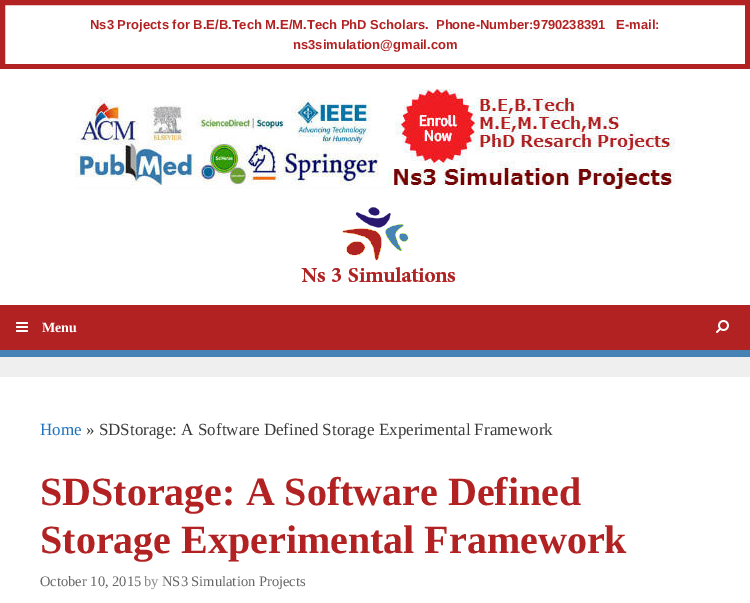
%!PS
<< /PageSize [750 603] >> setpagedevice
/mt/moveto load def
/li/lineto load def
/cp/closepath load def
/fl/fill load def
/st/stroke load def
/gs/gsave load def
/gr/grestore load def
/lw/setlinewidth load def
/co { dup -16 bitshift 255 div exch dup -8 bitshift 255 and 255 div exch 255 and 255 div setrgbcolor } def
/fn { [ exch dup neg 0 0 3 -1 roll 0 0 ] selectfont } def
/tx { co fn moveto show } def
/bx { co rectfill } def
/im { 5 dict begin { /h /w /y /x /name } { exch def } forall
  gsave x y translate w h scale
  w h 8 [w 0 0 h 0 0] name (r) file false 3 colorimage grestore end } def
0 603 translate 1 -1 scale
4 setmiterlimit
0 0 750 603 16#EFEFEF bx
16#FFFFFF co
2.5 2.5 mt 747.5 2.5 li 747.5 66.5 li 2.5 66.5 li cp gs fl gr
16#B22222 co
5 lw
st
0 69 750 236 16#FFFFFF bx
(media/1.raw) 75 89 600 100 im
(media/2.raw) 301 207 154 75 im
0 305 750 45 16#B22222 bx
(media/3.raw) 16 322 12 10 im
(media/4.raw) 716 320 13 13 im
0 350 750 7 16#4682B4 bx
0 377 750 226 16#FFFFFF bx
(Ns3 Projects for B.E/B.Tech M.E/M.Tech PhD Scholars.  Phone-Number:9790238391   E-mail:) 90 29 /LiberationSans-Bold 13 16#B22222 tx
(ns3simulation@gmail.com) 293 49 /LiberationSans-Bold 13 16#B22222 tx
(Menu) 42 332 /LiberationSerif-Bold 14 16#FFFFFF tx
(Home) 40 435 /LiberationSerif-Regular 17 16#1E73BE tx
(» SDStorage: A Software Defined Storage Experimental Framework) 86 435 /LiberationSerif-Regular 17 16#3A3A3A tx
(SDStorage: A Software Defined) 40 505 /LiberationSerif-Bold 40 16#B22222 tx
(Storage Experimental Framework) 40 553 /LiberationSerif-Bold 40 16#B22222 tx
(October 10, 2015) 40 586 /LiberationSerif-Regular 14.5 16#666666 tx
(by) 144 586 /LiberationSerif-Regular 14.5 16#888888 tx
(NS3 Simulation Projects) 162 586 /LiberationSerif-Regular 14.5 16#666666 tx
showpage
